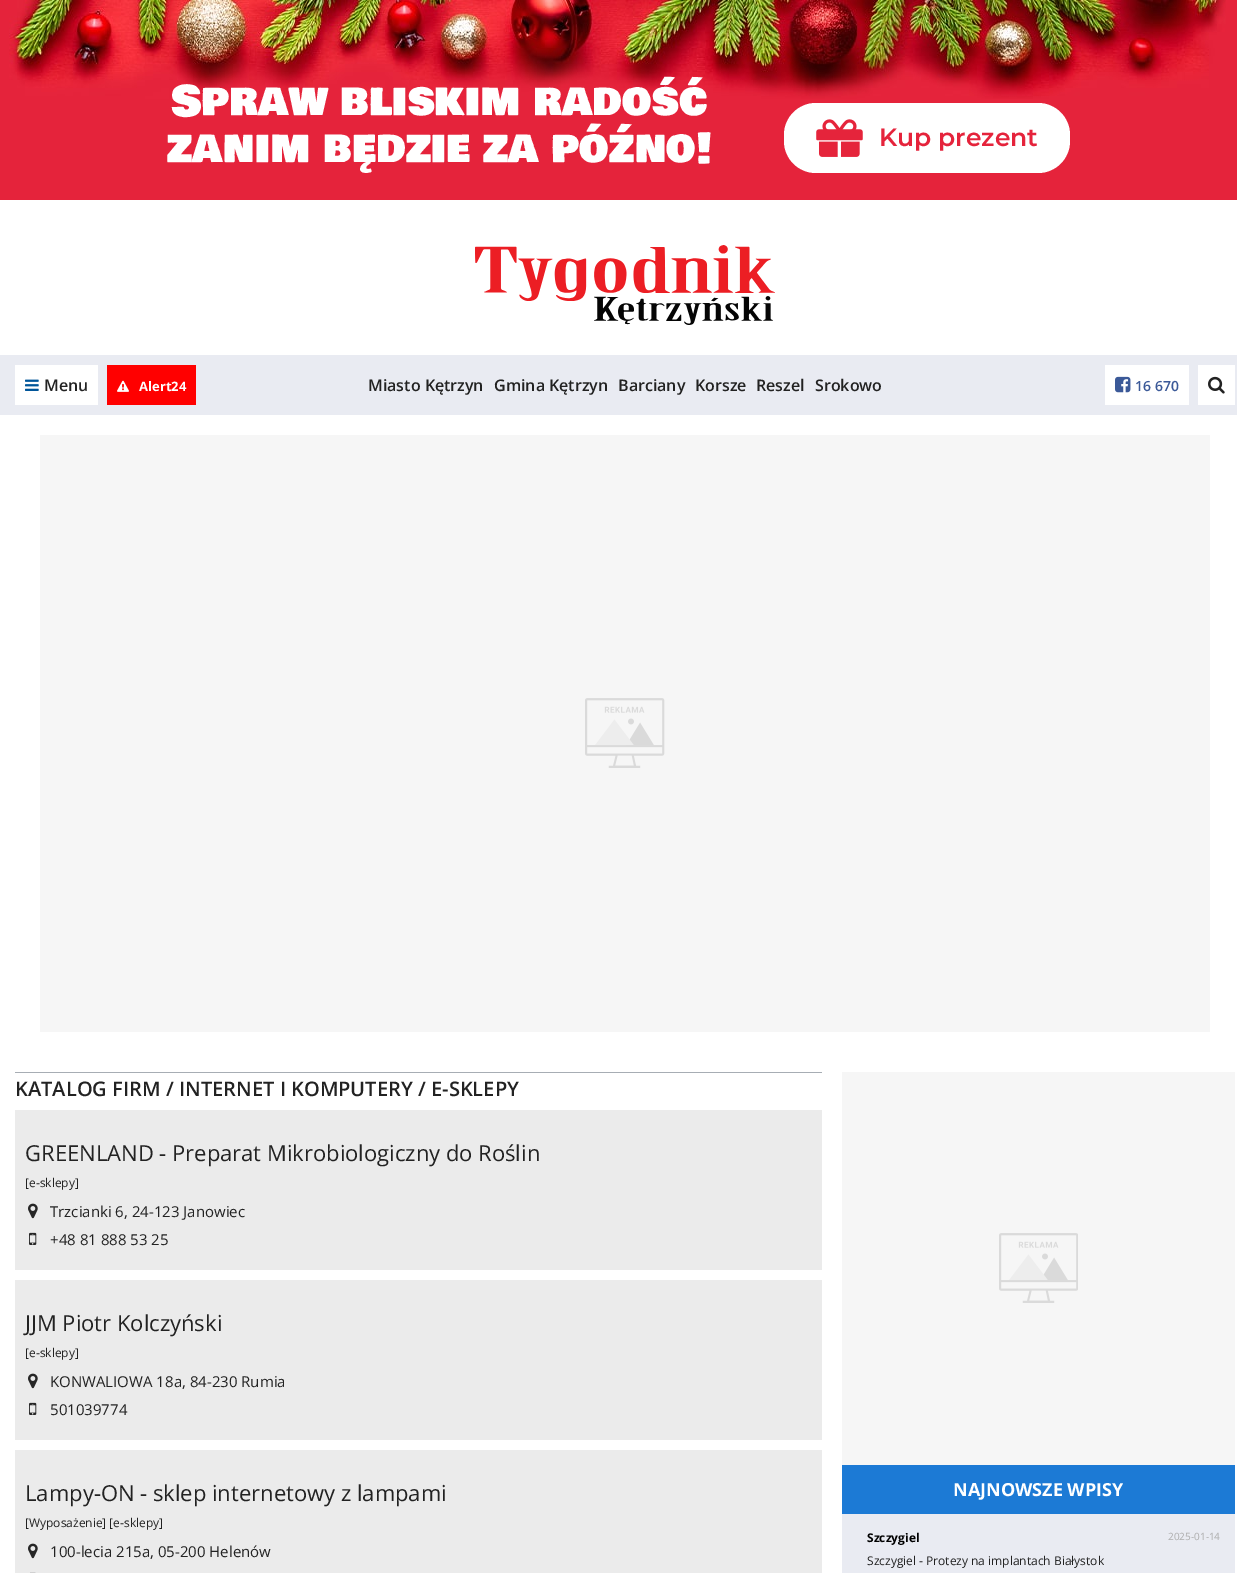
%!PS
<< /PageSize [1237 1573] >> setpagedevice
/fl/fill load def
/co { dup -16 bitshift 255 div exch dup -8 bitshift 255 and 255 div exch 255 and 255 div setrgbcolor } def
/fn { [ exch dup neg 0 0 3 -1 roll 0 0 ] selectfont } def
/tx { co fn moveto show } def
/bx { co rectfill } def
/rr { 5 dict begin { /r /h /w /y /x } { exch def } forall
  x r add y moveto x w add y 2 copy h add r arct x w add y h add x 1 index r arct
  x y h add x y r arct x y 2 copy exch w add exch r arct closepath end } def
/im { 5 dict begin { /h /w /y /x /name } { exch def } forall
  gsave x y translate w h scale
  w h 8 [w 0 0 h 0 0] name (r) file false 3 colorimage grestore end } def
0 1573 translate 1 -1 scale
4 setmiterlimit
0 0 1237 1573 16#FFFFFF bx
0 0 1237 200 16#E5233B bx
(media/1.raw) 9 0 1217 99 im
16#FFFFFF co
784 103 286 70 32 rr fl
(media/2.raw) 816 119 47 38 im
(media/3.raw) 475 245 300 80 im
0 355 1237 60 16#E9EBF2 bx
15 365 83 40 16#FFFFFF bx
(media/4.raw) 25 379 14 12 im
107 365 89 40 16#FF0000 bx
(media/5.raw) 117 380 12 12 im
1105 365 84 40 16#FFFFFF bx
(media/6.raw) 1115 376 16 17 im
1198 365 37 40 16#FFFFFF bx
(media/7.raw) 1208 376 17 18 im
40 435 1170 597 16#F6F6F6 bx
(media/8.raw) 585 698 80 70 im
15 1072 807 1 16#A7ADB4 bx
15 1110 807 160 16#EBEBEB bx
(media/9.raw) 28 1203 10 16 im
(media/10.raw) 29 1232 8 13 im
15 1280 807 160 16#EBEBEB bx
(media/9.raw) 28 1373 10 16 im
(media/10.raw) 29 1402 8 13 im
15 1450 807 123 16#EBEBEB bx
(media/9.raw) 28 1543 10 16 im
(media/11.raw) 30 1572 6 1 im
842 1072 393 393 16#F6F6F6 bx
(media/12.raw) 999 1233 79 70 im
842 1465 393 49 16#1C7AD5 bx
842 1514 393 59 16#E9EBF2 bx
(Spraw bliskim radość) 171 116 /BowlbyOneSC-Regular 42 16#FFFFFF tx
(zanim będzie za późno!) 167 163 /BowlbyOneSC-Regular 42 16#FFFFFF tx
(Kup prezent) 879 146 /Montserrat-SemiBold 25 16#E5233B tx
(Menu) 44 391 /OpenSans-SemiBold 16 16#222222 tx
(Alert24) 139 391 /OpenSans-Bold 13 16#FFFFFF tx
(Miasto Kętrzyn) 368 391 /OpenSans-SemiBold 16 16#222222 tx
(Gmina Kętrzyn) 494 391 /OpenSans-SemiBold 16 16#222222 tx
(Barciany) 618 391 /OpenSans-SemiBold 16 16#222222 tx
(Korsze) 695 391 /OpenSans-SemiBold 16 16#222222 tx
(Reszel) 756 391 /OpenSans-SemiBold 16 16#222222 tx
(Srokowo) 815 391 /OpenSans-SemiBold 16 16#222222 tx
(16 670) 1135 391 /OpenSans-SemiBold 14 16#3B5998 tx
(KATALOG FIRM / INTERNET I KOMPUTERY / E-SKLEPY) 15 1096 /OpenSans-SemiBold 20.1 16#222222 tx
(GREENLAND - Preparat Mikrobiologiczny do Roślin) 25 1161 /OpenSans-Regular 22 16#222222 tx
([e-sklepy]) 25 1187 /OpenSans-Regular 12 16#222222 tx
(Trzcianki 6, 24-123 Janowiec) 50 1217 /OpenSans-Regular 15 16#222222 tx
(+48 81 888 53 25) 50 1245 /OpenSans-Regular 15 16#222222 tx
(JJM Piotr Kolczyński) 25 1331 /OpenSans-Regular 22 16#222222 tx
([e-sklepy]) 25 1357 /OpenSans-Regular 12 16#222222 tx
(KONWALIOWA 18a, 84-230 Rumia) 50 1387 /OpenSans-Regular 15 16#222222 tx
(501039774) 50 1415 /OpenSans-Regular 15 16#222222 tx
(Lampy-ON - sklep internetowy z lampami) 25 1501 /OpenSans-Regular 22 16#222222 tx
([Wyposażenie] [e-sklepy]) 25 1527 /OpenSans-Regular 12 16#222222 tx
(100-lecia 215a, 05-200 Helenów) 50 1557 /OpenSans-Regular 15 16#222222 tx
(NAJNOWSZE WPISY) 953 1496 /OpenSans-Bold 18 16#FFFFFF tx
(Szczygiel) 867 1542 /OpenSans-Bold 12 16#000000 tx
(2025-01-14) 1168 1540 /OpenSans-Regular 10 16#ACACAC tx
(Szczygiel - Protezy na implantach Białystok) 867 1565 /OpenSans-Regular 12 16#222222 tx
showpage
